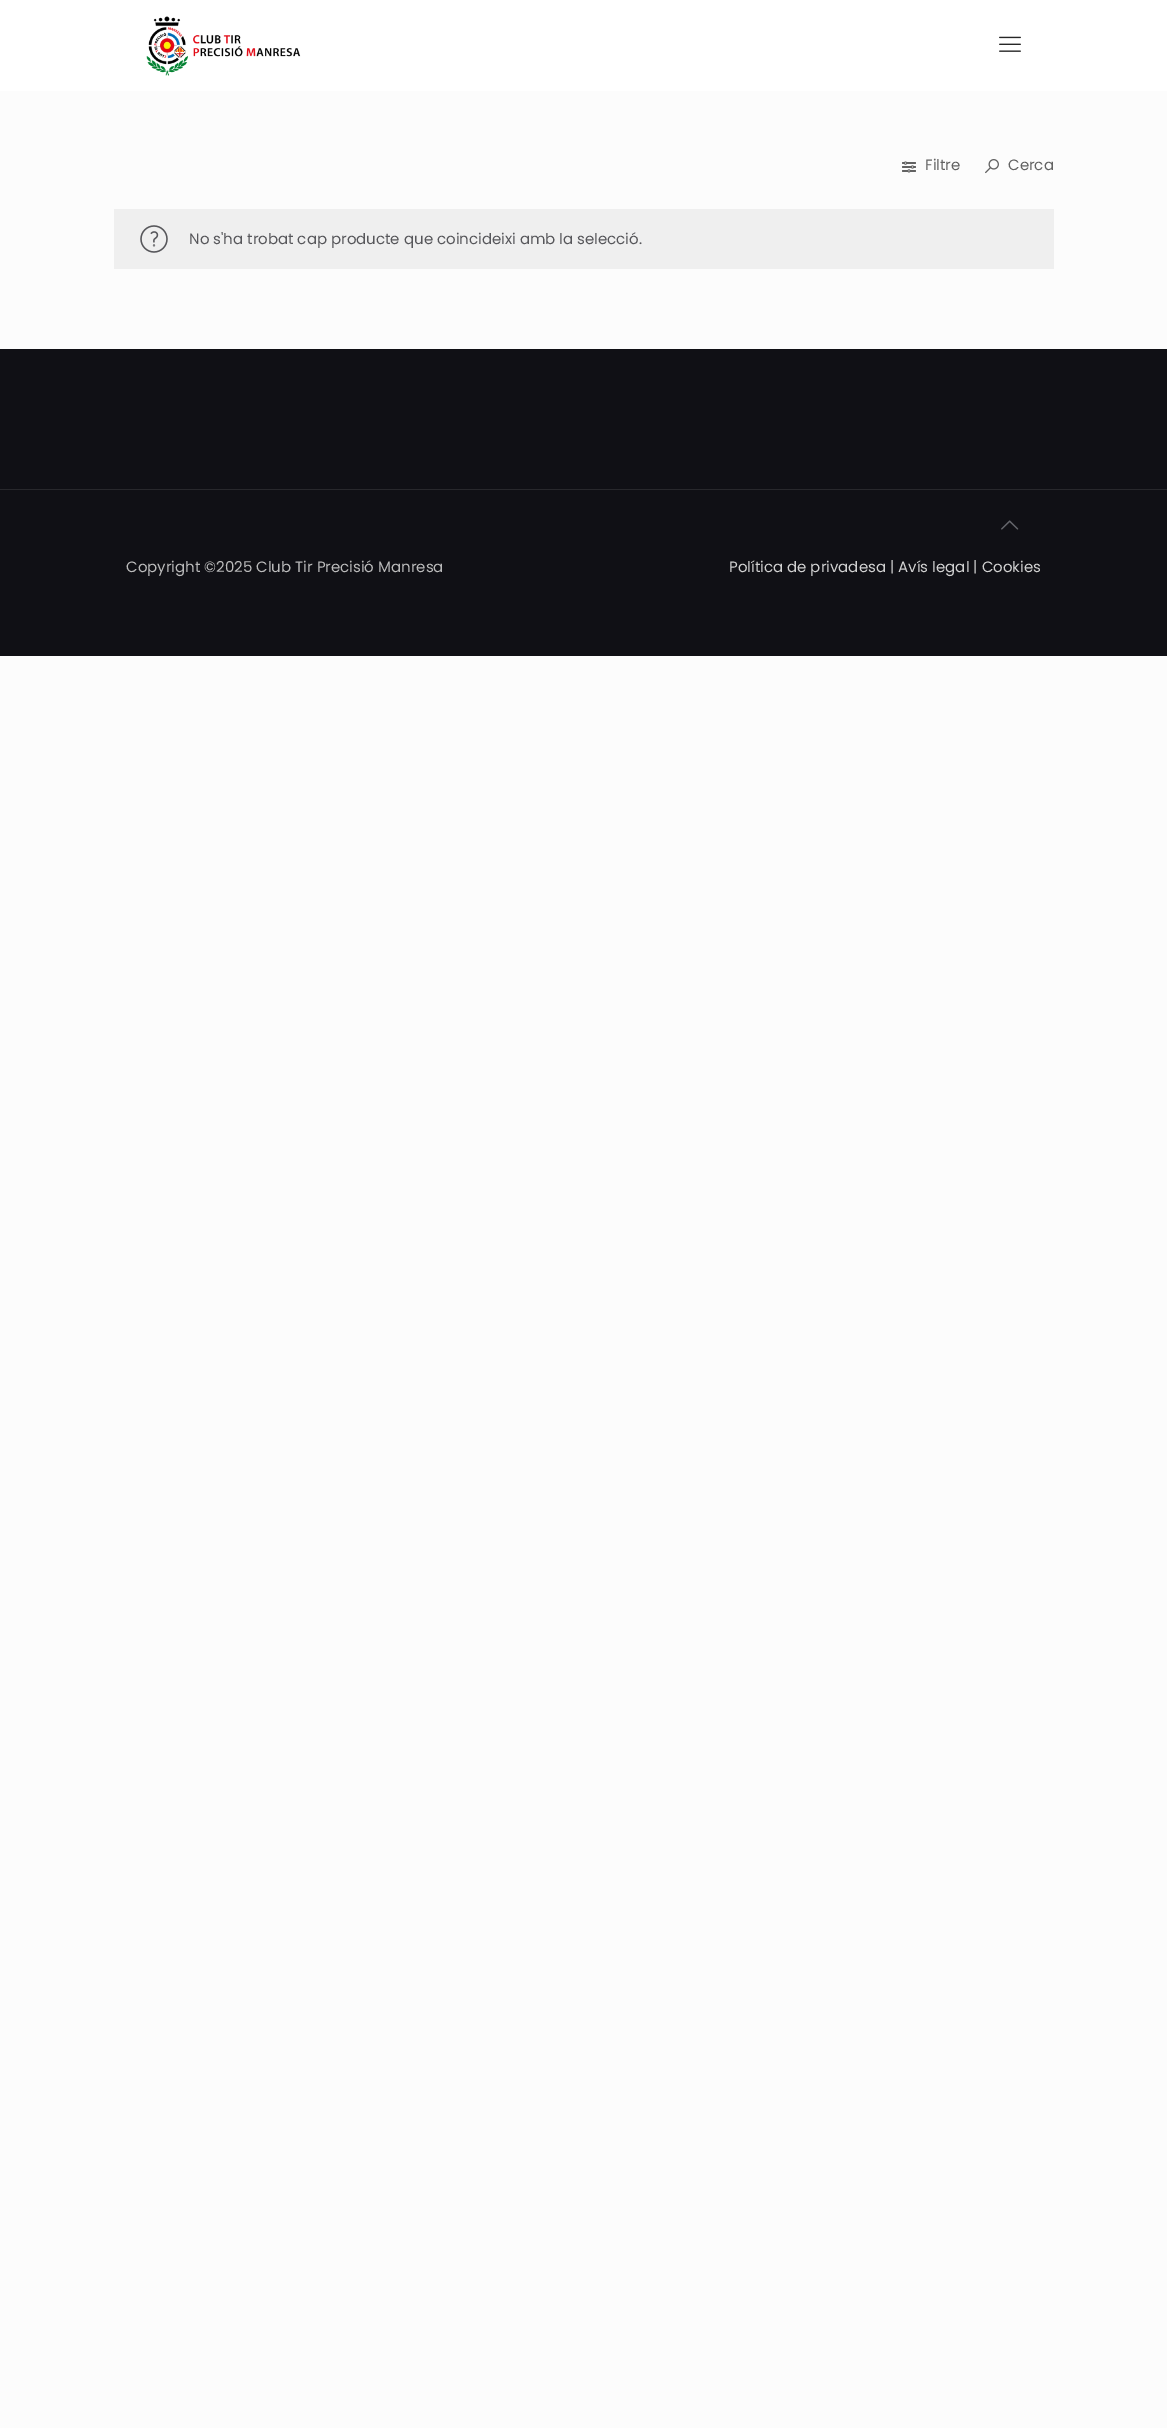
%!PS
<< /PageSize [1167 2428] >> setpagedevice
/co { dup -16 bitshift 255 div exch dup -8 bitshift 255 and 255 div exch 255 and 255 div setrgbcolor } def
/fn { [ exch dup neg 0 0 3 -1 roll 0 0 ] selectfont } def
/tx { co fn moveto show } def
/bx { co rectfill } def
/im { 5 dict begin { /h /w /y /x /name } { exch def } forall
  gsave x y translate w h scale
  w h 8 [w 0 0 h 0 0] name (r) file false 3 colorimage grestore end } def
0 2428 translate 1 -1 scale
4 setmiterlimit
0 0 1167 2428 16#FCFCFC bx
0 0 1167 91 16#FFFFFF bx
(media/1.raw) 146 16 155 60 im
(media/2.raw) 999 36 22 16 im
(media/3.raw) 902 161 14 12 im
(media/4.raw) 985 159 14 15 im
114 209 940 60 16#EFEFEF bx
(media/5.raw) 140 225 28 28 im
0 349 1167 307 16#101015 bx
0 489 1167 1 16#28282C bx
(media/6.raw) 1001 520 18 10 im
(Filtre) 925 170 /Poppins-Regular 15 16#626262 tx
(Cerca) 1008 170 /Poppins-Regular 15 16#626262 tx
(No s'ha trobat cap producte que coincideixi amb la selecció.) 189 244 /Poppins-Regular 15 16#57575B tx
(Copyright ©2025 Club Tir Precisió Manresa) 126 572 /Poppins-Regular 15 16#BABABA tx
(Política de privadesa | Avís legal | Cookies) 729 572 /Poppins-Regular 15 16#D1D1D1 tx
showpage
